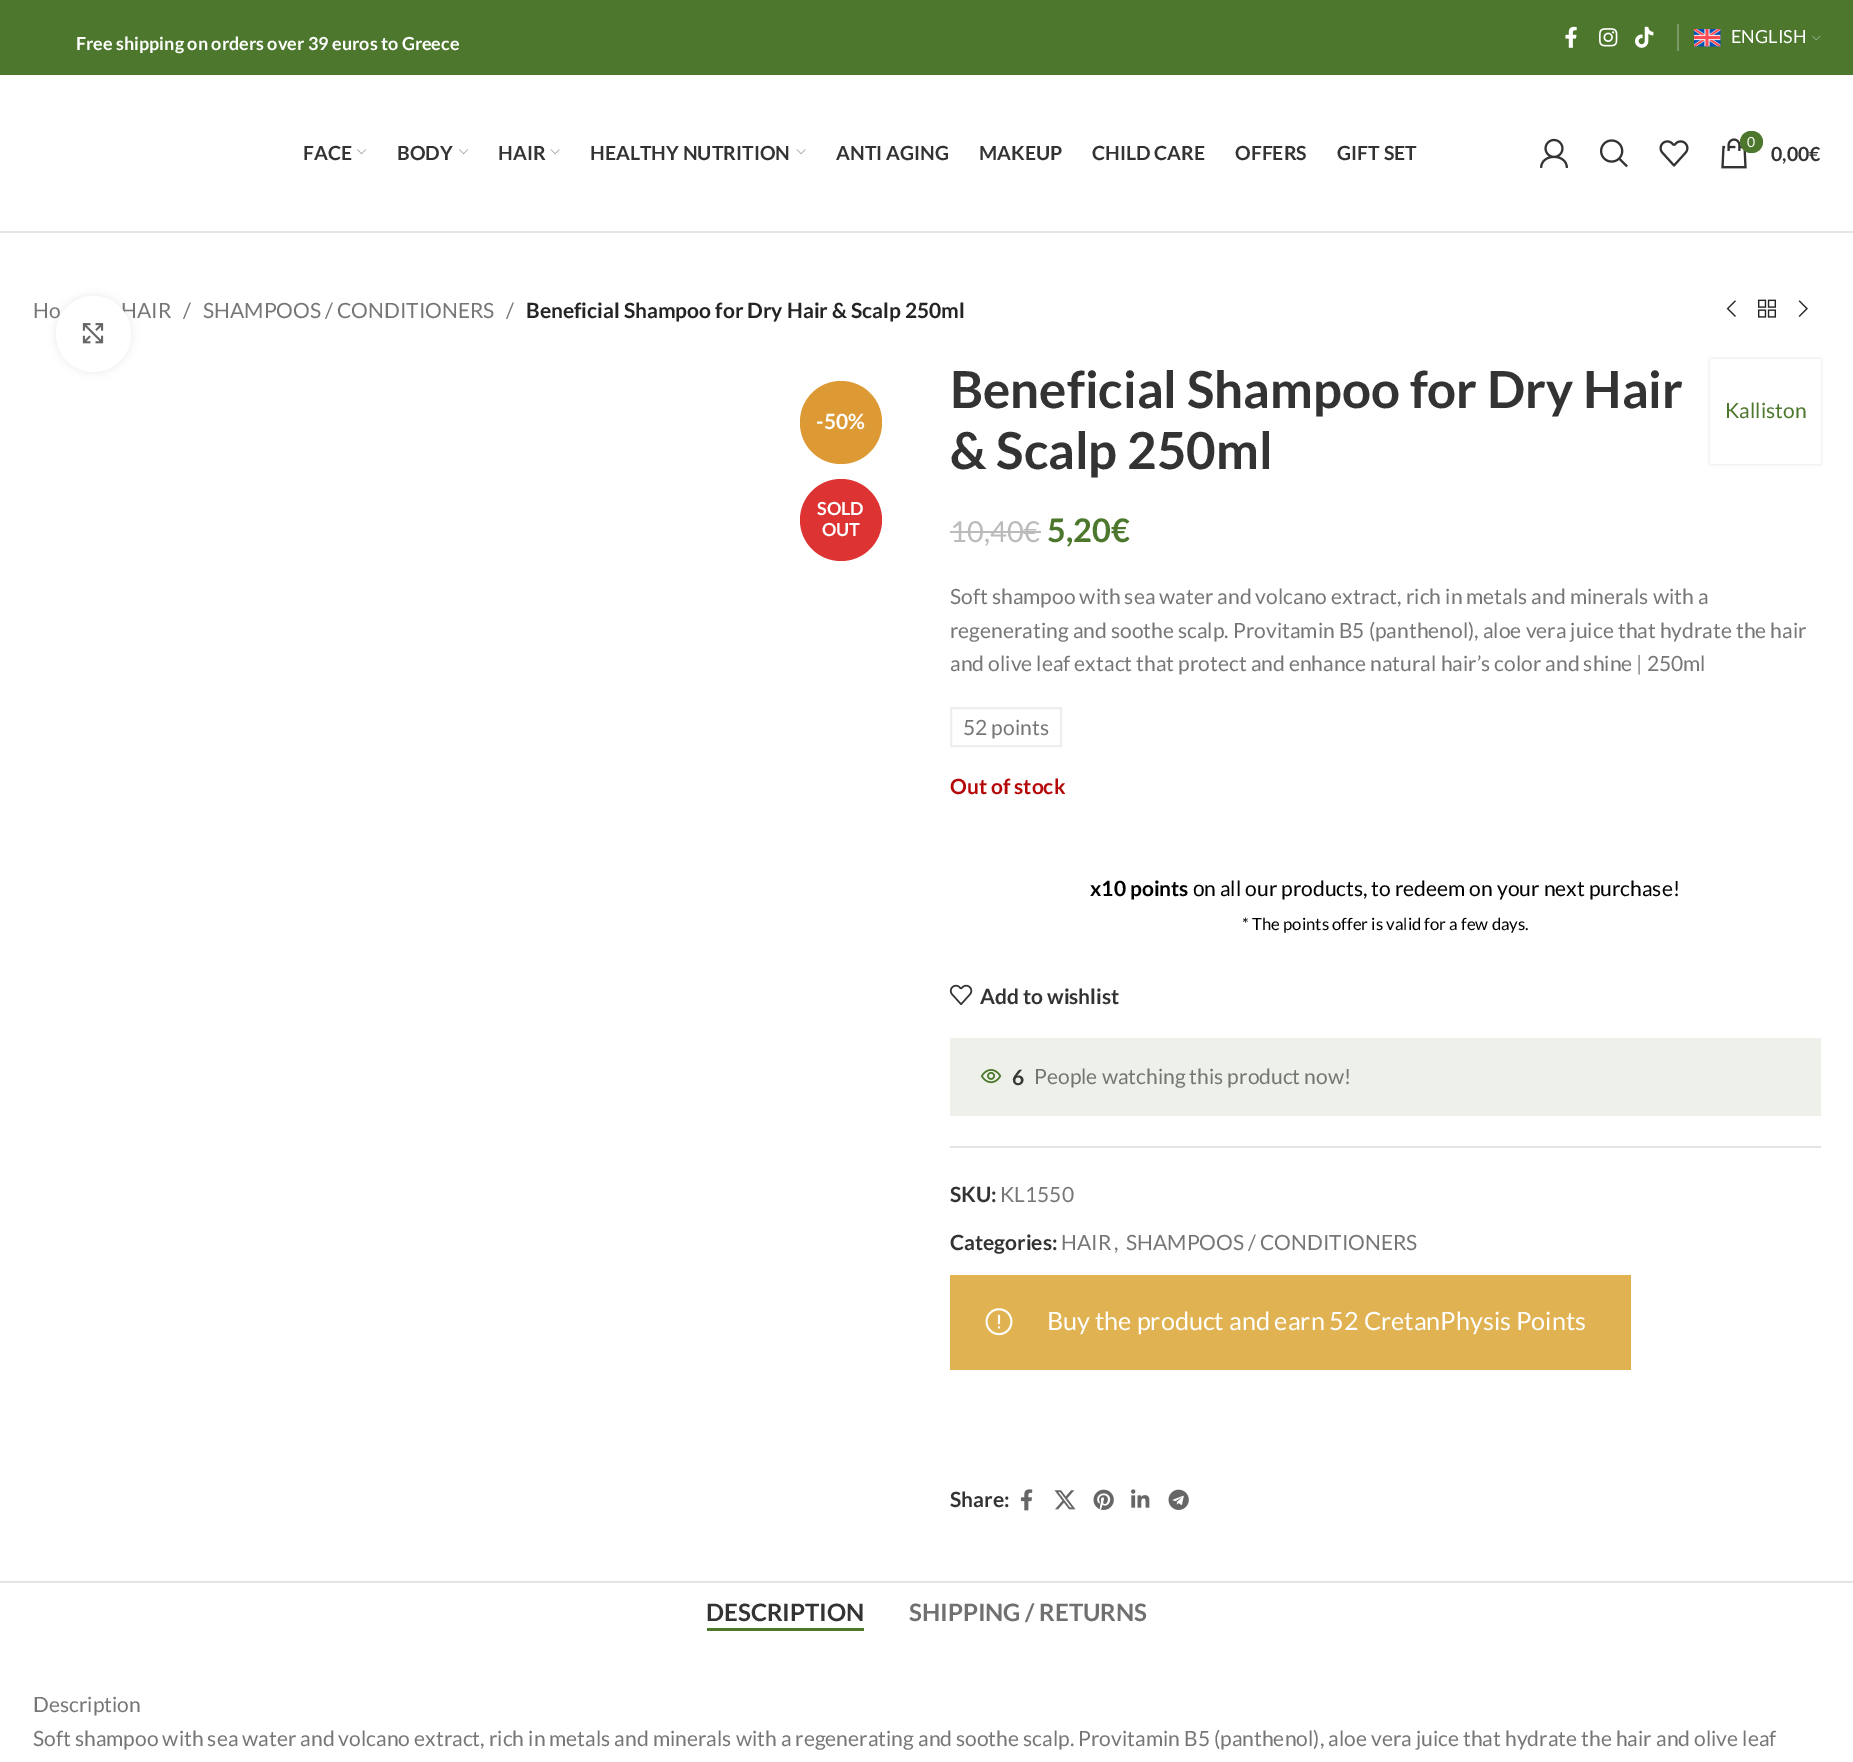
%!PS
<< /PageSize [1853 1762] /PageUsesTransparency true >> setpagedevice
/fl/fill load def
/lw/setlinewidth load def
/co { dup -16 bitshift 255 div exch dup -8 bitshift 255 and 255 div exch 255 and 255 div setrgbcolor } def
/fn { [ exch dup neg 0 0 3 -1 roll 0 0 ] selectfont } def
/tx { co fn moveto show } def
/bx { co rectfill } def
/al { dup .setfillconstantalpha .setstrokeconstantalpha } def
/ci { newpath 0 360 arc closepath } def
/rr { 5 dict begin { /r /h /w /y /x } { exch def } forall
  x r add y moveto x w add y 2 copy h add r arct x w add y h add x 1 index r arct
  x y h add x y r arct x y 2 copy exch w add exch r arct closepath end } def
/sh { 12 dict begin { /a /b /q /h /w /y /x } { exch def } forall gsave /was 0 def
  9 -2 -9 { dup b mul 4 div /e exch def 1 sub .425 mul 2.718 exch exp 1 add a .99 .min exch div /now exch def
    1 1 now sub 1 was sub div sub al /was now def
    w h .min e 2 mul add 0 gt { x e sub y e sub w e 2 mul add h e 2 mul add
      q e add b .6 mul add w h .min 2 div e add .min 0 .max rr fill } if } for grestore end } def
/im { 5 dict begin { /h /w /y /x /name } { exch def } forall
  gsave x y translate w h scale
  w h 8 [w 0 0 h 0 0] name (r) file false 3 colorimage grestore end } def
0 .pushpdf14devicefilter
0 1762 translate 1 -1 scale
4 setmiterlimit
0 0 1853 1762 16#FFFFFF bx
950 1038 871 78 16#EDF1EA bx
0 0 1853 75 16#4D772D bx
(media/1.raw) 1565 26 12 22 im
(media/2.raw) 1599 28 19 19 im
(media/3.raw) 1635 26 19 22 im
1677 24 2 27 16#7A9962 bx
(media/4.raw) 1694 29 27 18 im
(media/5.raw) 1812 35 9 6 im
0 231 1853 2 16#E6E6E6 bx
(media/6.raw) 357 149 9 6 im
(media/6.raw) 459 149 9 6 im
(media/7.raw) 550 149 10 6 im
(media/7.raw) 796 149 10 6 im
(media/8.raw) 1540 138 28 30 im
(media/9.raw) 1600 139 28 29 im
(media/10.raw) 1659 140 30 27 im
(media/11.raw) 1721 138 26 31 im
16#4D772D co
1740 131 23 22 11 rr fl
(media/12.raw) 1726 300 10 17 im
(media/13.raw) 1758 299 18 19 im
(media/14.raw) 1798 300 10 17 im
16#000000 co
56 296 75 76 37.5 4 .08 sh
16#DD9933 co
800 381 82 83 41 rr fl
16#DD3333 co
841 520 41 ci fl
16#000000 co
1710 359 111 105 0 1.5 .12 sh
1710 359 111 105 16#FFFFFF bx
950 531 91 2 16#BBBBBB bx
16#EEEEEE co
2 lw
951 708 110 38 rectstroke
(media/16.raw) 949 984 24 21 im
(media/17.raw) 980 1069 22 15 im
950 1146 871 2 16#E4E4E4 bx
950 1275 681 95 16#E0B252 bx
(media/18.raw) 985 1308 28 28 im
(media/19.raw) 1020 1489 13 22 im
(media/20.raw) 1054 1490 22 20 im
(media/21.raw) 1093 1489 21 21 im
(media/22.raw) 1131 1489 19 19 im
(media/23.raw) 1168 1489 21 21 im
0 1581 1853 2 16#E4E4E4 bx
707 1628 157 3 16#4D772D bx
(Free shipping on orders over 39 euros to Greece) 76 50 /Lato-Bold 18 16#FFFFFF tx
(ENGLISH) 1731 43 /Lato-Regular 18 16#FFFFFF tx
(FACE) 303 160 /Lato-Bold 19.5 16#333333 tx
(BODY) 397 160 /Lato-Bold 19.5 16#333333 tx
(HAIR) 498 160 /Lato-Bold 19.5 16#333333 tx
(HEALTHY NUTRITION) 590 160 /Lato-Bold 19.5 16#333333 tx
(ANTI AGING) 836 160 /Lato-Bold 19.5 16#333333 tx
(MAKEUP) 979 160 /Lato-Bold 19.5 16#333333 tx
(CHILD CARE) 1092 160 /Lato-Bold 19.5 16#333333 tx
(OFFERS) 1235 160 /Lato-Bold 19.5 16#333333 tx
(GIFT SET) 1337 160 /Lato-Bold 19.5 16#333333 tx
(0) 1747 147 /Lato-Regular 14 16#FFFFFF tx
(0,00€) 1771 161 /Lato-Bold 19.5 16#333333 tx
(Ho) 33 318 /Lato-Regular 21 16#767676 tx
(HAIR) 121 318 /Lato-Regular 21 16#767676 tx
(/) 183 318 /Lato-Regular 21 16#767676 tx
(SHAMPOOS / CONDITIONERS) 203 318 /Lato-Regular 21 16#767676 tx
(/) 506 318 /Lato-Regular 21 16#767676 tx
(Beneficial Shampoo for Dry Hair & Scalp 250ml) 526 318 /Lato-Bold 21 16#242424 tx
16#FFFFFF co
56 296 75 76 37.5 rr fl
(media/15.raw) 82 323 22 21 im
(-50%) 816 429 /Lato-Bold 21 16#FFFFFF tx
(SOLD) 817 515 /Lato-Bold 18 16#FFFFFF tx
(OUT) 822 536 /Lato-Bold 18 16#FFFFFF tx
(Beneficial Shampoo for Dry Hair) 950 408 /Lato-Bold 51 16#333333 tx
(& Scalp 250ml) 950 469 /Lato-Bold 51 16#333333 tx
(Kalliston) 1725 418 /Lato-Regular 21 16#4D772D tx
(10,40€) 950 542 /Lato-Regular 29 16#BBBBBB tx
(5,20€) 1047 542 /Lato-Bold 32.5 16#4D772D tx
(Soft shampoo with sea water and volcano extract, rich in metals and minerals with a) 950 604 /Lato-Regular 21 16#767676 tx
(regenerating and soothe scalp. Provitamin B5 \(panthenol\), aloe vera juice that hydrate the hair) 950 638 /Lato-Regular 21 16#767676 tx
(and olive leaf extact that protect and enhance natural hair’s color and shine | 250ml) 950 671 /Lato-Regular 21 16#767676 tx
(52 points) 963 735 /Lato-Regular 21 16#767676 tx
(Out of stock) 950 794 /Lato-Bold 21 16#B50808 tx
(x10 points) 1090 896 /Lato-Bold 21 16#000000 tx
(ο) 1193 896 /LiberationSans-Regular 21 16#000000 tx
(n all our products, to redeem on your next purchase!) 1204 896 /Lato-Regular 21 16#000000 tx
(* The points offer is valid for a few days.) 1242 930 /Lato-Regular 16.75 16#000000 tx
(Add to wishlist) 980 1004 /Lato-Bold 21 16#333333 tx
(6) 1012 1085 /Lato-Bold 21 16#363A32 tx
(People watching this product now!) 1034 1084 /Lato-Regular 21 16#737770 tx
(SKU:) 950 1202 /Lato-Bold 21 16#333333 tx
(KL1550) 1000 1202 /Lato-Regular 21 16#767676 tx
(Categories:) 950 1250 /Lato-Bold 21 16#333333 tx
(HAIR) 1061 1250 /Lato-Regular 21 16#767676 tx
(,) 1114 1250 /Lato-Regular 21 16#767676 tx
(SHAMPOOS / CONDITIONERS) 1126 1250 /Lato-Regular 21 16#767676 tx
(Buy the product and earn 52 CretanPhysis Points) 1047 1330 /Lato-Regular 25.2 16#FFFFFF tx
(Share:) 950 1507 /Lato-Bold 21 16#333333 tx
(DESCRIPTION) 706 1621 /Lato-Bold 24 16#333333 tx
(SHIPPING / RETURNS) 909 1621 /Lato-Bold 24 16#707070 tx
(Description) 33 1712 /Lato-Regular 21 16#767676 tx
(Soft shampoo with sea water and volcano extract, rich in metals and minerals with a regenerating and soothe scalp. Provitamin B5 \(panthenol\), aloe vera juice that hydrate the hair and olive leaf) 33 1746 /Lato-Regular 21 16#767676 tx
.poppdf14devicefilter showpage
